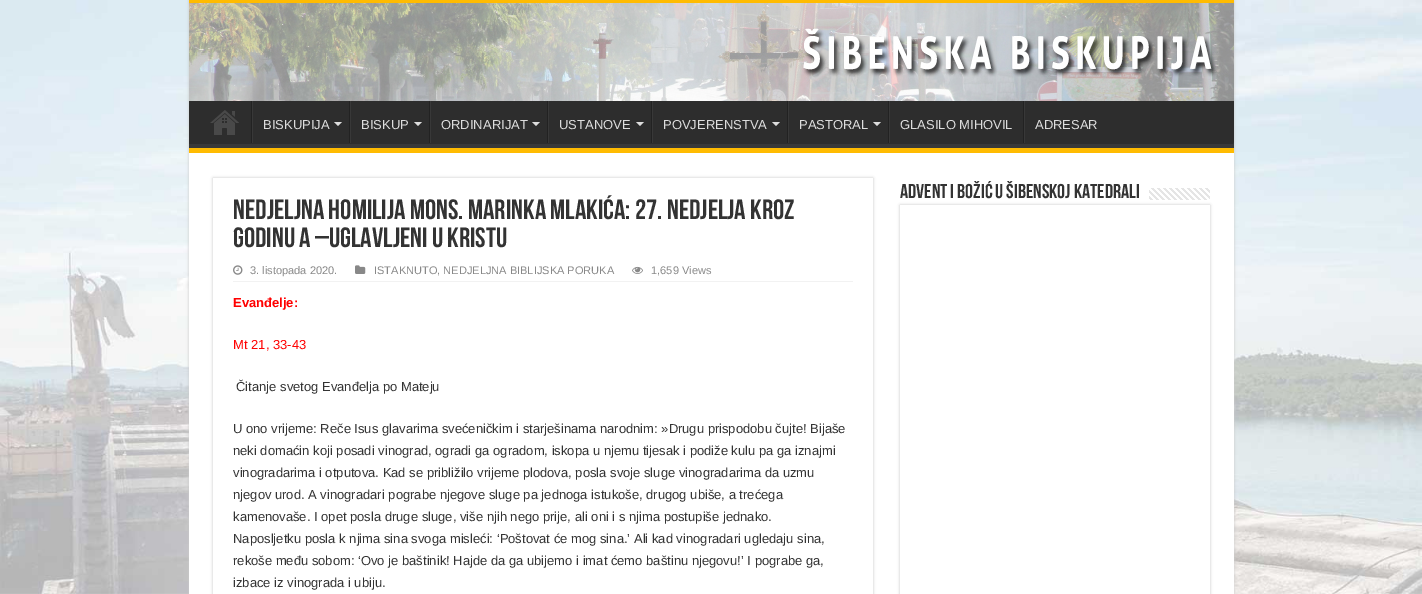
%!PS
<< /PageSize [1422 594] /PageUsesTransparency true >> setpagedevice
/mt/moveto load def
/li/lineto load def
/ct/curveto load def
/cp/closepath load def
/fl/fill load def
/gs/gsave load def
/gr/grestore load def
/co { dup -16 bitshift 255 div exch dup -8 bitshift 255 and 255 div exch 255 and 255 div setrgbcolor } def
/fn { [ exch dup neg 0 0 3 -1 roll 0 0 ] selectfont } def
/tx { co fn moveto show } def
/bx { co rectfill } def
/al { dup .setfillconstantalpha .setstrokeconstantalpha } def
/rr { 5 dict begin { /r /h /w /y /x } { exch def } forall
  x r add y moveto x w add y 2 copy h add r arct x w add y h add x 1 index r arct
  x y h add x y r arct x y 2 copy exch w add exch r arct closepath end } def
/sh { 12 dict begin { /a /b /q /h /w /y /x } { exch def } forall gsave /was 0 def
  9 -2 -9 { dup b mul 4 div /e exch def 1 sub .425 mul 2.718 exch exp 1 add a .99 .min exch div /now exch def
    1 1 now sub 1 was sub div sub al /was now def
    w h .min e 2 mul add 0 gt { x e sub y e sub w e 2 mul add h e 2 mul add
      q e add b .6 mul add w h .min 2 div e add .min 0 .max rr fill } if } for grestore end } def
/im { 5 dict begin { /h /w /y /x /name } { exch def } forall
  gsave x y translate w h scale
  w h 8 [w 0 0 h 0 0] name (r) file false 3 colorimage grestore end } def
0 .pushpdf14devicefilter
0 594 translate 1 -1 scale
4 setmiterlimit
0 0 1422 594 16#FFFFFF bx
(media/1.raw) 0 0 1422 594 im
16#CACACA co
189 0 1045 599 0 1.5 1 sh
189 153 1045 441 16#FFFFFF bx
189 0 1045 3 16#FFBB01 bx
(media/2.raw) 189 3 1045 98 im
189 101 1045 43 16#2D2D2D bx
gs
189 101 1045 47 rectclip
16#393939 co
90 2 mt 1333 2 li 1333 247 li 90 247 li cp 188 95 mt 1234 95 li 1234 135 li 1234 136 1235 144 1233 144 ct 188 144 li 187 143 li 187 95 li cp eofill
gr
189 148 1045 5 16#FFBB01 bx
(media/3.raw) 210 110 29 25 im
251 101 1 42 16#222222 bx
252 101 1 42 16#383838 bx
16#DDDDDD co
334 122 mt 342 122 li 338 126 li cp fl
349 101 1 42 16#222222 bx
350 101 1 42 16#383838 bx
16#DDDDDD co
414 122 mt 422 122 li 418 126 li cp fl
429 101 1 42 16#222222 bx
430 101 1 42 16#383838 bx
16#DDDDDD co
532 122 mt 540 122 li 536 126 li cp fl
547 101 1 42 16#222222 bx
548 101 1 42 16#383838 bx
16#DDDDDD co
636 122 mt 644 122 li 640 126 li cp fl
651 101 1 42 16#222222 bx
652 101 1 42 16#383838 bx
16#DDDDDD co
772 122 mt 780 122 li 776 126 li cp fl
787 101 1 42 16#222222 bx
788 101 1 42 16#383838 bx
16#DDDDDD co
873 122 mt 881 122 li 877 126 li cp fl
888 101 1 42 16#222222 bx
889 101 1 42 16#383838 bx
1023 101 1 42 16#222222 bx
1024 101 1 42 16#383838 bx
gs
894 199 mt 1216 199 li 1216 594 li 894 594 li cp 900 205 mt 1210 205 li 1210 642 li 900 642 li cp eoclip newpath
16#CACACA co
900 205 310 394 0 1.5 1 sh
gr
(media/4.raw) 1149 188 61 12 im
gs
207 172 mt 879 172 li 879 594 li 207 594 li cp 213 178 mt 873 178 li 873 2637 li 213 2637 li cp eoclip newpath
16#CACACA co
213 178 660 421 0 1.5 1 sh
gr
233 281 620 1 16#F2F2F2 bx
(media/5.raw) 233 265 10 10 im
(media/6.raw) 355 265 11 9 im
(media/7.raw) 632 266 11 8 im
(BISKUPIJA) 263 129 /LiberationSans-Regular 13 16#DDDDDD tx
(BISKUP) 361 129 /LiberationSans-Regular 13 16#DDDDDD tx
(ORDINARIJAT) 441 129 /LiberationSans-Regular 13 16#DDDDDD tx
(USTANOVE) 559 129 /LiberationSans-Regular 13 16#DDDDDD tx
(POVJERENSTVA) 663 129 /LiberationSans-Regular 13 16#DDDDDD tx
(PASTORAL) 799 129 /LiberationSans-Regular 13 16#DDDDDD tx
(GLASILO MIHOVIL) 900 129 /LiberationSans-Regular 13 16#DDDDDD tx
(ADRESAR) 1035 129 /LiberationSans-Regular 13 16#DDDDDD tx
(Advent i božić u šibenskoj katedrali) 900 198 /BebasNeue-Bold 20 16#333333 tx
(Nedjeljna homilija mons. Marinka Mlakića: 27. nedjelja kroz) 233 219 /BebasNeue-Bold 28 16#333333 tx
(godinu A –Uglavljeni u Kristu) 233 247 /BebasNeue-Bold 28 16#333333 tx
(3. listopada 2020.) 250 274 /LiberationSans-Regular 11.05 16#888888 tx
(ISTAKNUTO, NEDJELJNA BIBLIJSKA PORUKA) 374 274 /LiberationSans-Regular 11.05 16#888888 tx
(1,659 Views) 651 274 /LiberationSans-Regular 11.05 16#888888 tx
(Evanđelje:) 233 307 /LiberationSans-Bold 13 16#FF0000 tx
(Mt 21, 33-43) 233 349 /LiberationSans-Regular 13 16#FF0000 tx
(Čitanje svetog Evanđelja po Mateju) 236 391 /LiberationSans-Regular 13 16#333333 tx
(U ono vrijeme: Reče Isus glavarima svećeničkim i starješinama narodnim: »Drugu prispodobu čujte! Bijaše) 233 433 /LiberationSans-Regular 13 16#333333 tx
(neki domaćin koji posadi vinograd, ogradi ga ogradom, iskopa u njemu tijesak i podiže kulu pa ga iznajmi) 233 455 /LiberationSans-Regular 13 16#333333 tx
(vinogradarima i otputova. Kad se približilo vrijeme plodova, posla svoje sluge vinogradarima da uzmu) 233 477 /LiberationSans-Regular 13 16#333333 tx
(njegov urod. A vinogradari pograbe njegove sluge pa jednoga istukoše, drugog ubiše, a trećega) 233 499 /LiberationSans-Regular 13 16#333333 tx
(kamenovaše. I opet posla druge sluge, više njih nego prije, ali oni i s njima postupiše jednako.) 233 521 /LiberationSans-Regular 13 16#333333 tx
(Naposljetku posla k njima sina svoga misleći: ‘Poštovat će mog sina.’ Ali kad vinogradari ugledaju sina,) 233 543 /LiberationSans-Regular 13 16#333333 tx
(rekoše među sobom: ‘Ovo je baštinik! Hajde da ga ubijemo i imat ćemo baštinu njegovu!’ I pograbe ga,) 233 565 /LiberationSans-Regular 13 16#333333 tx
(izbace iz vinograda i ubiju.) 233 587 /LiberationSans-Regular 13 16#333333 tx
.poppdf14devicefilter showpage
